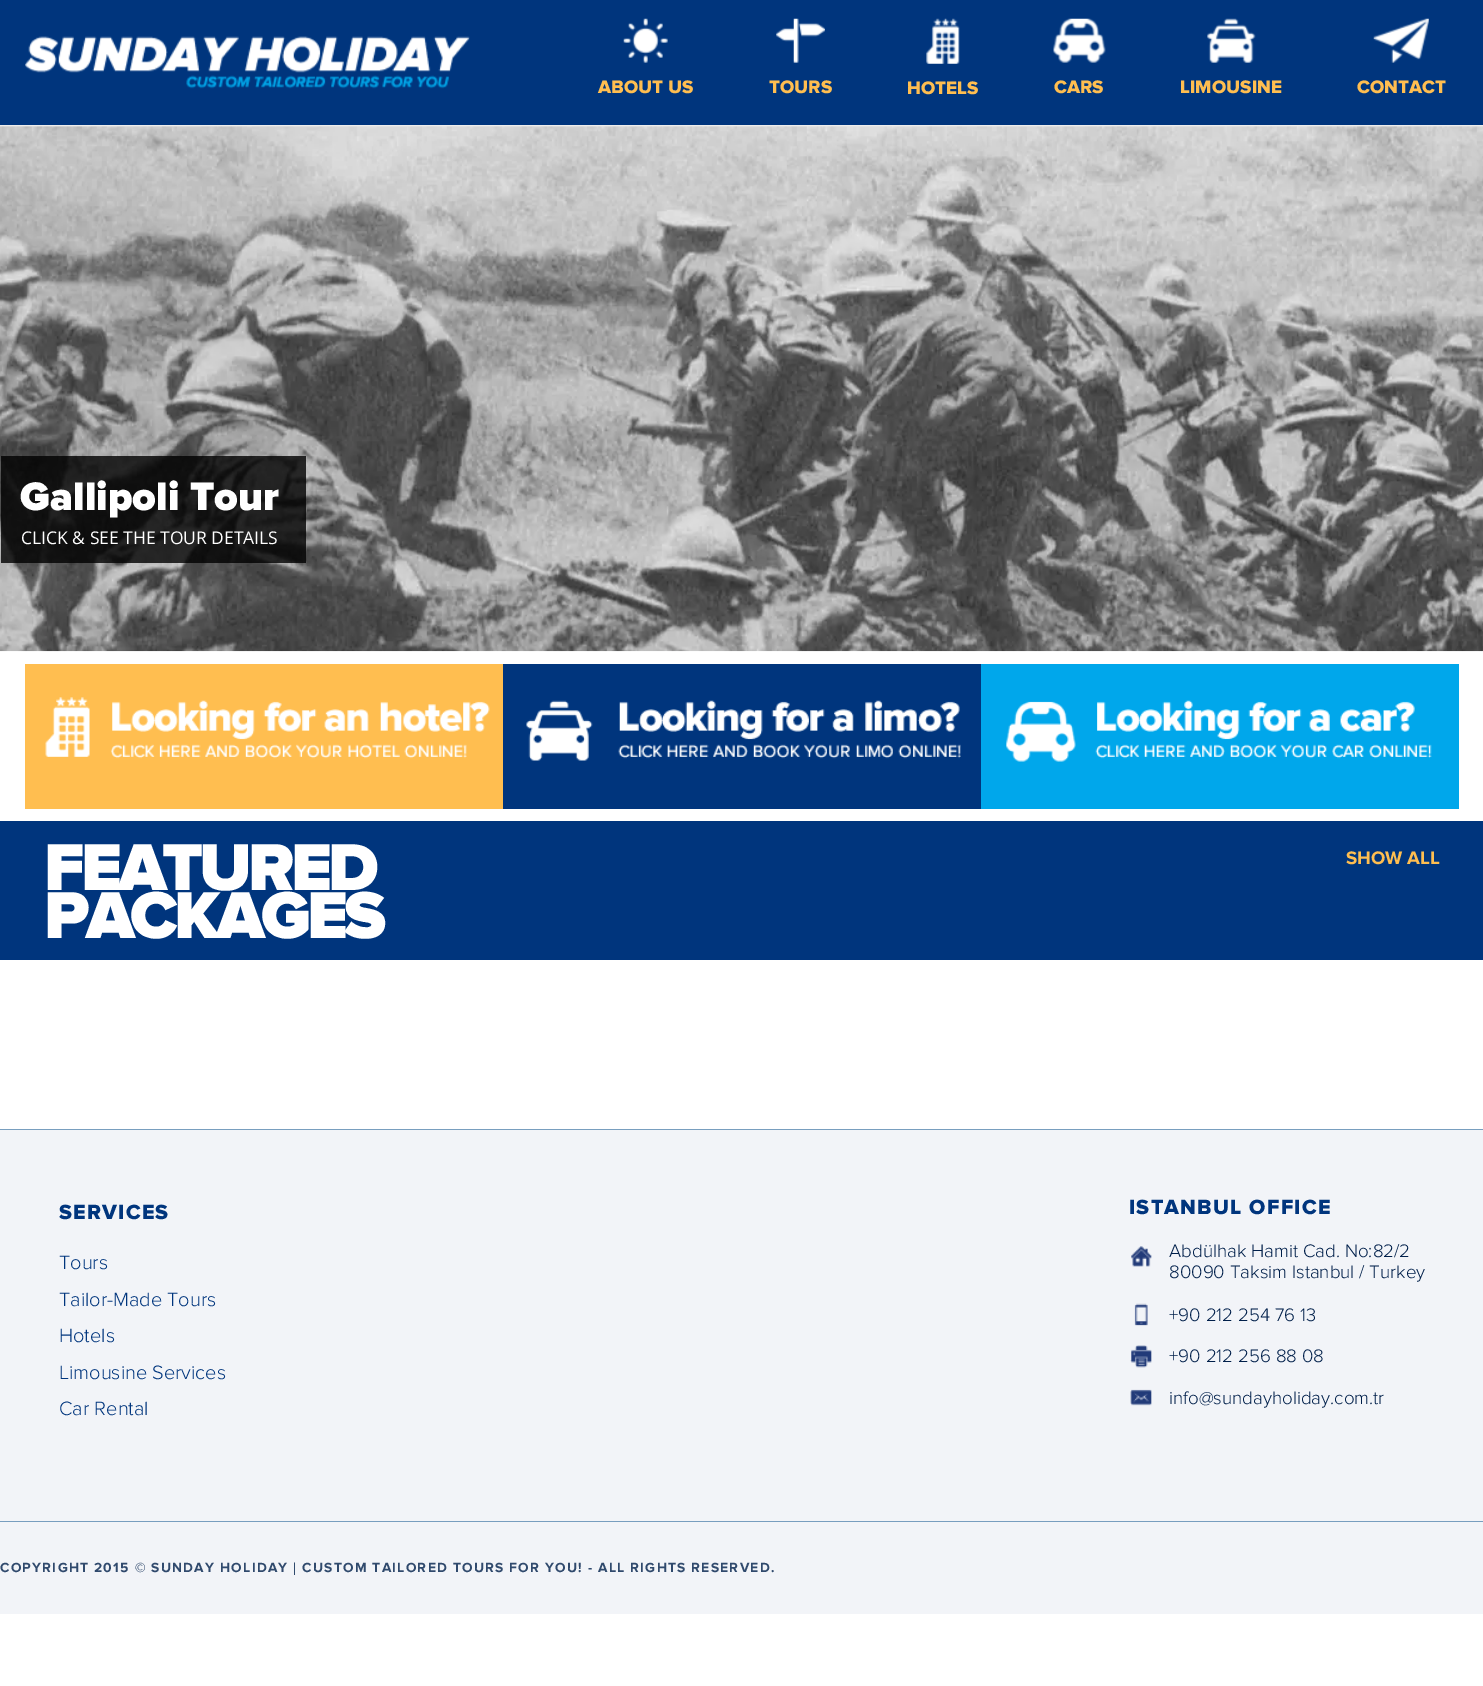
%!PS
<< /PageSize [1483 1686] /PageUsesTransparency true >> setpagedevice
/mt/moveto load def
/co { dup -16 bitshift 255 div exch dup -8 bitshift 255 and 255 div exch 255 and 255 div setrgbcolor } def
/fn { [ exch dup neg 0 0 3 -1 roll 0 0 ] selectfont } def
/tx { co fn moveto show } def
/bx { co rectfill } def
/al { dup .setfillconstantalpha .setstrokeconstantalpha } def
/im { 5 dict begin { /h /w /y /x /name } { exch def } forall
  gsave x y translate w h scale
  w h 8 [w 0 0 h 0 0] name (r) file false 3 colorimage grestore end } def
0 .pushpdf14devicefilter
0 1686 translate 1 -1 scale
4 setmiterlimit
0 0 1483 1686 16#FFFFFF bx
0 125 1483 1 16#EDEDED bx
0 0 1483 125 16#00357D bx
(media/1.raw) 25 36 445 53 im
(media/2.raw) 623 18 45 45 im
(media/3.raw) 776 18 49 45 im
(media/4.raw) 926 18 34 46 im
(media/5.raw) 1053 18 53 45 im
(media/6.raw) 1207 18 49 45 im
(media/7.raw) 1373 18 56 45 im
0 126 1483 1 16#E9E9E9 bx
(media/8.raw) 0 126 1483 526 im
0.8 al
1 456 305 107 16#000000 bx
1 al
25 664 478 145 16#FFBE50 bx
(media/9.raw) 45 697 445 62 im
503 664 478 145 16#00357D bx
(media/10.raw) 526 700 435 61 im
981 664 478 145 16#00A7EB bx
(media/11.raw) 1006 700 426 62 im
0 821 1483 139 16#00357D bx
0 1130 1483 484 16#F2F4F8 bx
0 1129 1483 1 16#789EBF bx
(media/12.raw) 1131 1246 21 21 im
(media/13.raw) 1134 1303 14 23 im
(media/14.raw) 1130 1345 22 23 im
(media/15.raw) 1130 1389 22 17 im
0 1521 1483 1 16#789EBF bx
(ABOUT US) 598 93 /ProximaNova-ExtraBold 18.75 16#FFBE50 tx
(TOURS) 769 93 /ProximaNova-ExtraBold 18.75 16#FFBE50 tx
(HOTELS) 907 94 /ProximaNova-ExtraBold 18.75 16#FFBE50 tx
(CARS) 1054 93 /ProximaNova-ExtraBold 18.75 16#FFBE50 tx
(LIMOUSINE) 1180 93 /ProximaNova-ExtraBold 18.75 16#FFBE50 tx
(CONTACT) 1357 93 /ProximaNova-ExtraBold 18.75 16#FFBE50 tx
(Gallipoli Tour) 20 510 /ProximaNova-Black 41.25 16#FFFFFF tx
(CLICK & SEE THE TOUR DETAILS) 21 544 /OpenSans-Regular 17.5 16#FFFFFF tx
/ProximaNova-Black 68.75 fn
44 890 mt -4 0 (FEATURED) ashow
44 938 mt -4 0 (PACKAGES) ashow
(SHOW ALL) 1346 864 /ProximaNova-Bold 18.75 16#FFBE50 tx
/ProximaNova-ExtraBold 21.25 fn
16#00357D co
59 1219 mt 1.25 0 (SERVICES) ashow
(Tours) 59 1269 /ProximaNova-Light 20 16#00357D tx
(Tailor-Made Tours) 59 1306 /ProximaNova-Light 20 16#00357D tx
(Hotels) 59 1342 /ProximaNova-Light 20 16#00357D tx
(Limousine Services) 59 1379 /ProximaNova-Light 20 16#00357D tx
(Car Rental) 59 1415 /ProximaNova-Light 20 16#00357D tx
/ProximaNova-ExtraBold 21.25 fn
1129 1214 mt 1.25 0 (ISTANBUL OFFICE) ashow
(Abdülhak Hamit Cad. No:82/2) 1169 1257 /ProximaNova-Light 18.75 16#001F4A tx
(80090 Taksim Istanbul / Turkey) 1169 1278 /ProximaNova-Light 18.75 16#001F4A tx
(+90 212 254 76 13) 1169 1321 /ProximaNova-Light 18.75 16#001F4A tx
(+90 212 256 88 08) 1169 1362 /ProximaNova-Light 18.75 16#001F4A tx
(info@sundayholiday.com.tr) 1169 1404 /ProximaNova-Light 18.75 16#001F4A tx
/ProximaNova-Bold 13.75 fn
16#304A6D co
0 1572 mt 1.25 0 (COPYRIGHT 2015 © SUNDAY HOLIDAY) ashow
/LiberationSerif-Bold 13.75 fn
293 1572 mt 1.25 0 (|) ashow
/ProximaNova-Bold 13.75 fn
302 1572 mt 1.25 0 (CUSTOM TAILORED TOURS FOR YOU! - ALL RIGHTS RESERVED.) ashow
.poppdf14devicefilter showpage
